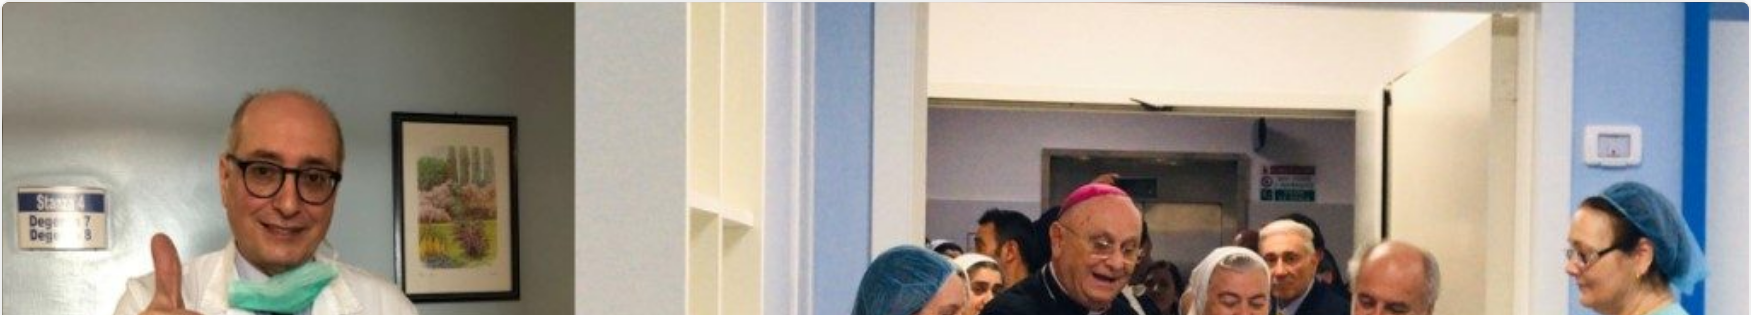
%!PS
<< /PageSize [1751 315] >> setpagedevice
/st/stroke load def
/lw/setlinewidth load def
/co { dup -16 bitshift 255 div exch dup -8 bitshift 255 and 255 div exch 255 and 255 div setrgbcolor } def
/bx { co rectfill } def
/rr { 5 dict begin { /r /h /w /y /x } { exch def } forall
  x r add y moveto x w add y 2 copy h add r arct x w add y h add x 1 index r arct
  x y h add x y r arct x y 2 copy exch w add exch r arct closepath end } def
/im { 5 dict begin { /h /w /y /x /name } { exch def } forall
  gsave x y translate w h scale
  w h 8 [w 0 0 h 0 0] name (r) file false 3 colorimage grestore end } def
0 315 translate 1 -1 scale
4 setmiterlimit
0 0 1751 315 16#FAFAFA bx
16#EFEFEF co
2 lw
1 1 1749 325 9 rr st
(media/1.raw) 2 2 1747 313 im
(media/2.raw) 2 2 1747 313 im
showpage
